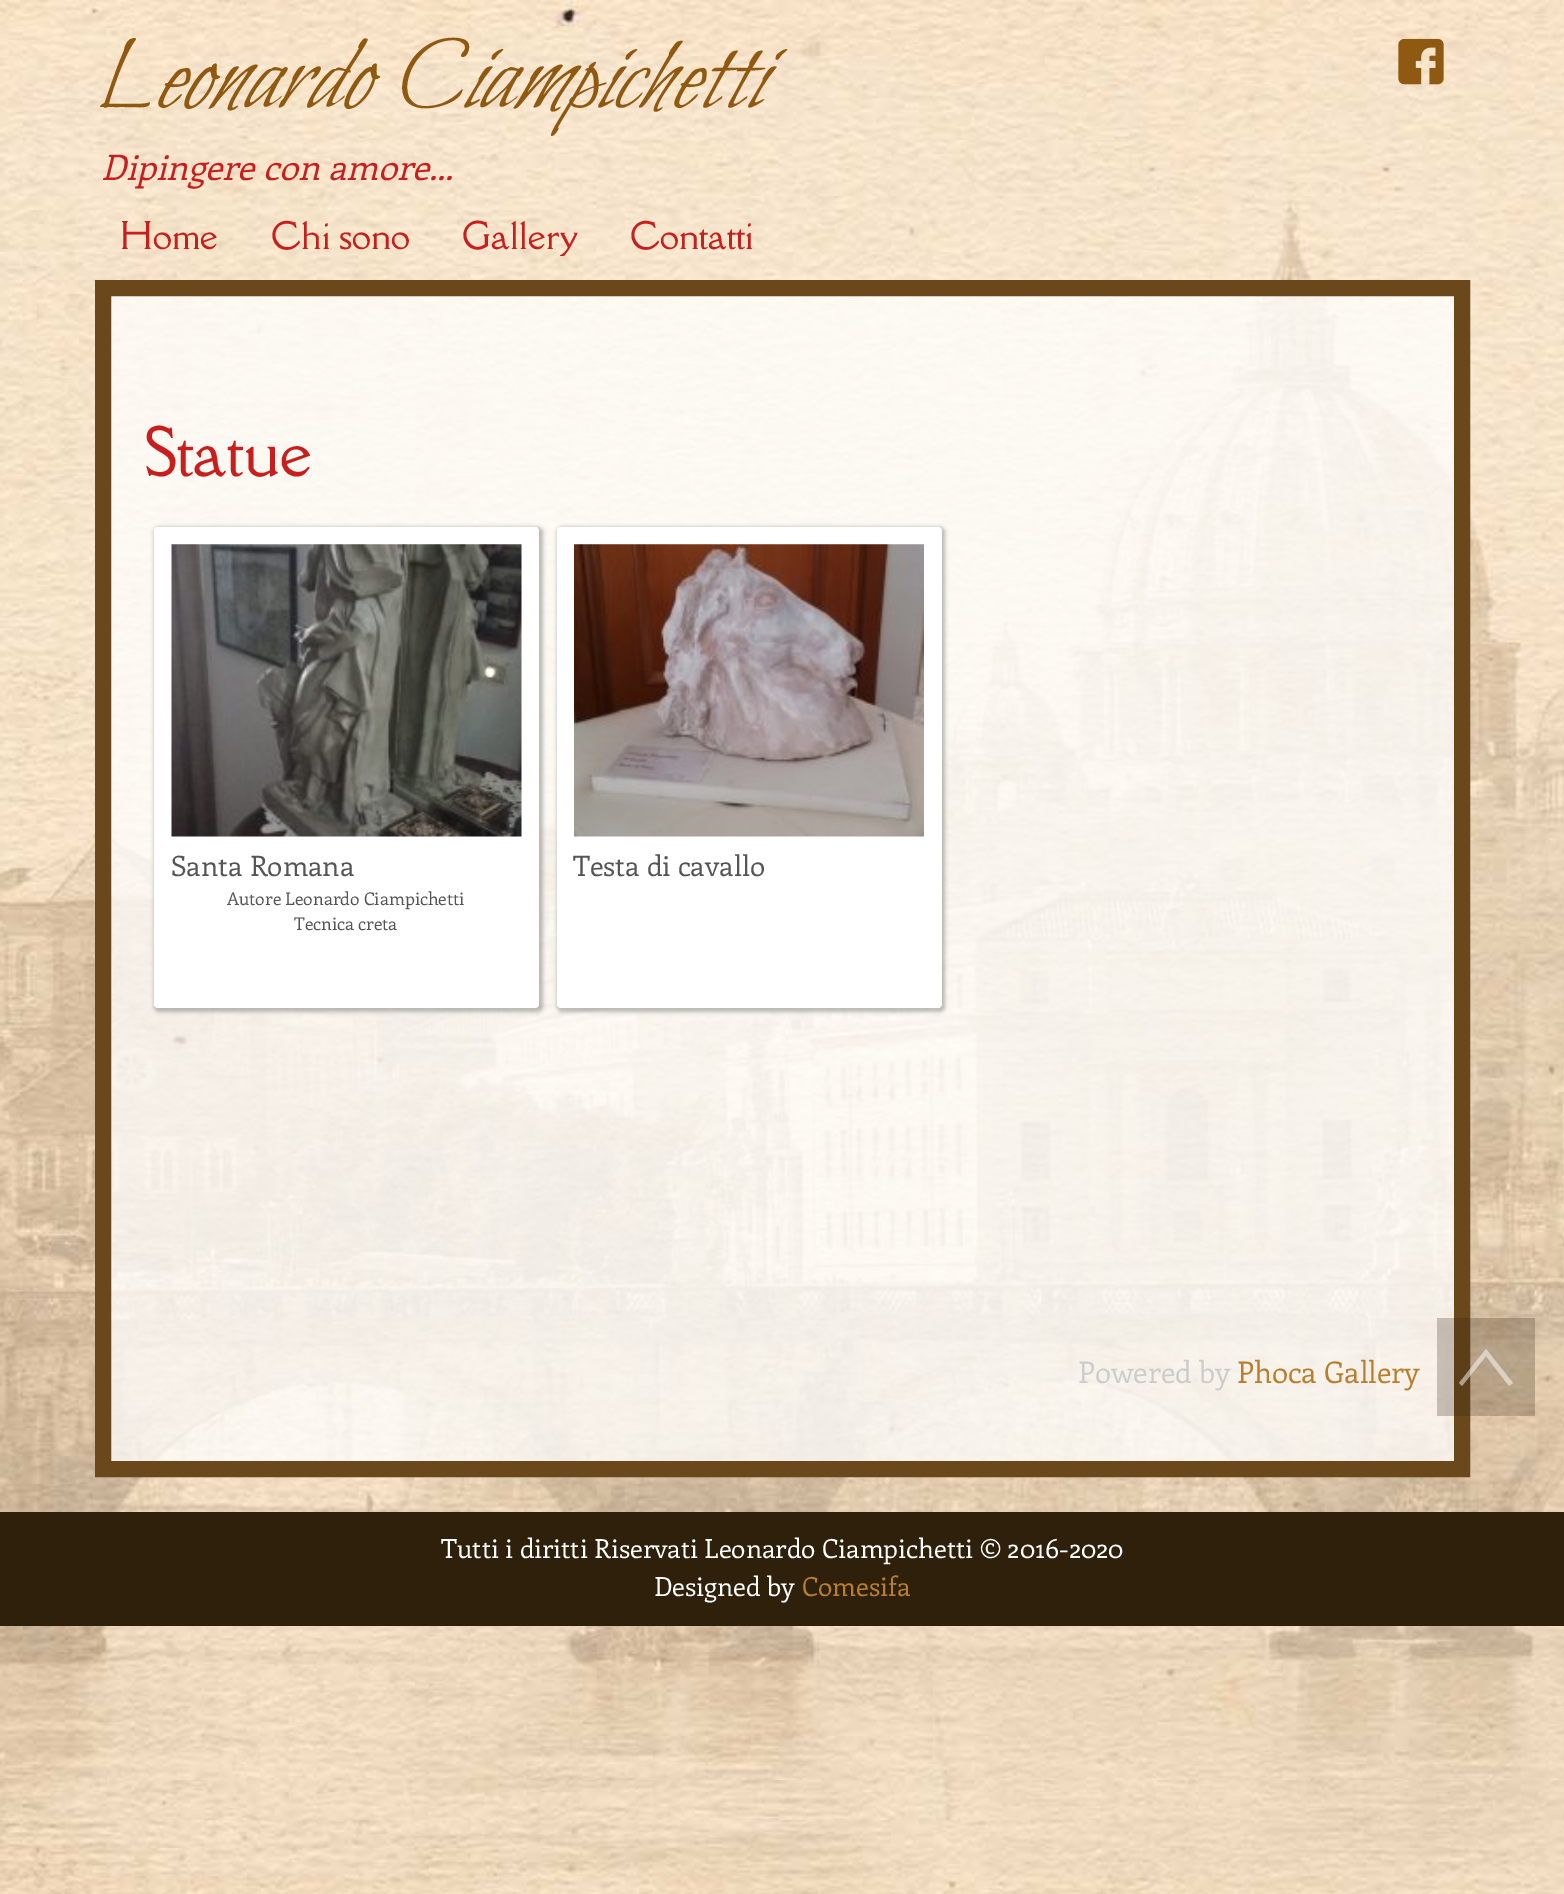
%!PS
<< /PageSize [1564 1894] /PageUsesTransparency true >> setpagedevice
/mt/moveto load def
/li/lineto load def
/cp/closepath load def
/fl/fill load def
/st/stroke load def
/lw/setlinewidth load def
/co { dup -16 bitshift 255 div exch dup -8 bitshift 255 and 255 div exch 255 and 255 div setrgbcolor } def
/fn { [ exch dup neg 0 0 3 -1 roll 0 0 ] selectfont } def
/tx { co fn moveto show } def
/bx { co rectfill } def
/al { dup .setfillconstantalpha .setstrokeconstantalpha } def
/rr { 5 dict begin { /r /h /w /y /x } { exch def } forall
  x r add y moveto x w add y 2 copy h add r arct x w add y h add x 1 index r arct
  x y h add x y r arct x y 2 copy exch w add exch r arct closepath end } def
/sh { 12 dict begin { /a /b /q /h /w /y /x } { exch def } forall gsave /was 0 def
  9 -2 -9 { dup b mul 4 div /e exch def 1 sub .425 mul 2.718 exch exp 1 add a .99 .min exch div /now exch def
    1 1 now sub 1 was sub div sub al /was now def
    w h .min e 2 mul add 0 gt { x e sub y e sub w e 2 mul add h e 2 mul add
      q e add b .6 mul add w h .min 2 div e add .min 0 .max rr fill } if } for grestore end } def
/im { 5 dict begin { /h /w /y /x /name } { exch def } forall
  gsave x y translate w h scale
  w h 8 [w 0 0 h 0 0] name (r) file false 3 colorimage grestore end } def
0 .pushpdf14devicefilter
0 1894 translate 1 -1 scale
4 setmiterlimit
0 0 1564 1894 16#FFFFFF bx
(media/1.raw) 0 0 1564 1894 im
(media/2.raw) 1398 38 46 47 im
0.75 al
103 288 mt 1462 288 li 1462 1469 li 103 1469 li cp fl
1 al
16#6A481B co
16 lw
103 288 mt 1462 288 li 1462 1469 li 103 1469 li cp st
16#787878 co
154 527 389 485 5 2 .5 sh
16#FFFFFF co
154 527 385 481 4 rr fl
(media/3.raw) 171 544 351 293 im
16#787878 co
557 527 388 485 5 2 .5 sh
16#FFFFFF co
557 527 385 481 4 rr fl
(media/4.raw) 574 544 350 293 im
0.25 al
1437 1318 98 98 16#33240F bx
0.5 al
16#FFFFFF co
1486 1349 mt 1513 1383 li 1509 1386 li 1486 1356 li 1462 1386 li 1459 1383 li cp fl
1 al
0 1512 1564 114 16#2F200C bx
(Leonardo Ciampichetti) 94 107 /Bilbo-Italic 105 16#8F5911 tx
(Dipingere con amore...) 101 180 /Enriqueta-Italic 35 16#C81E1E tx
(Home) 120 249 /DellaRespira-Regular 35 16#C81E1E tx
(Chi sono) 271 249 /DellaRespira-Regular 35 16#C81E1E tx
(Gallery) 462 249 /DellaRespira-Regular 35 16#C81E1E tx
(Contatti) 630 249 /DellaRespira-Regular 35 16#C81E1E tx
(Statue) 145 476 /DellaRespira-Regular 63 16#C81E1E tx
(Santa Romana) 171 876 /Enriqueta-Regular 28 16#555555 tx
(Autore Leonardo Ciampichetti) 227 905 /Enriqueta-Regular 17.5 16#555555 tx
(Tecnica creta) 294 930 /Enriqueta-Regular 17.5 16#555555 tx
(Testa di cavallo) 573 876 /Enriqueta-Regular 28 16#555555 tx
(Powered by) 1078 1383 /Enriqueta-Regular 29.75 16#CCCCCC tx
(Phoca Gallery) 1237 1383 /Enriqueta-Regular 29.75 16#BA7E2F tx
(Tutti i diritti Riservati Leonardo Ciampichetti © 2016-2020) 441 1558 /Enriqueta-Regular 26.25 16#FFFFFF tx
(Designed by) 654 1596 /Enriqueta-Regular 26.25 16#FFFFFF tx
(Comesifa) 802 1596 /Enriqueta-Regular 26.25 16#BA7E2F tx
.poppdf14devicefilter showpage
